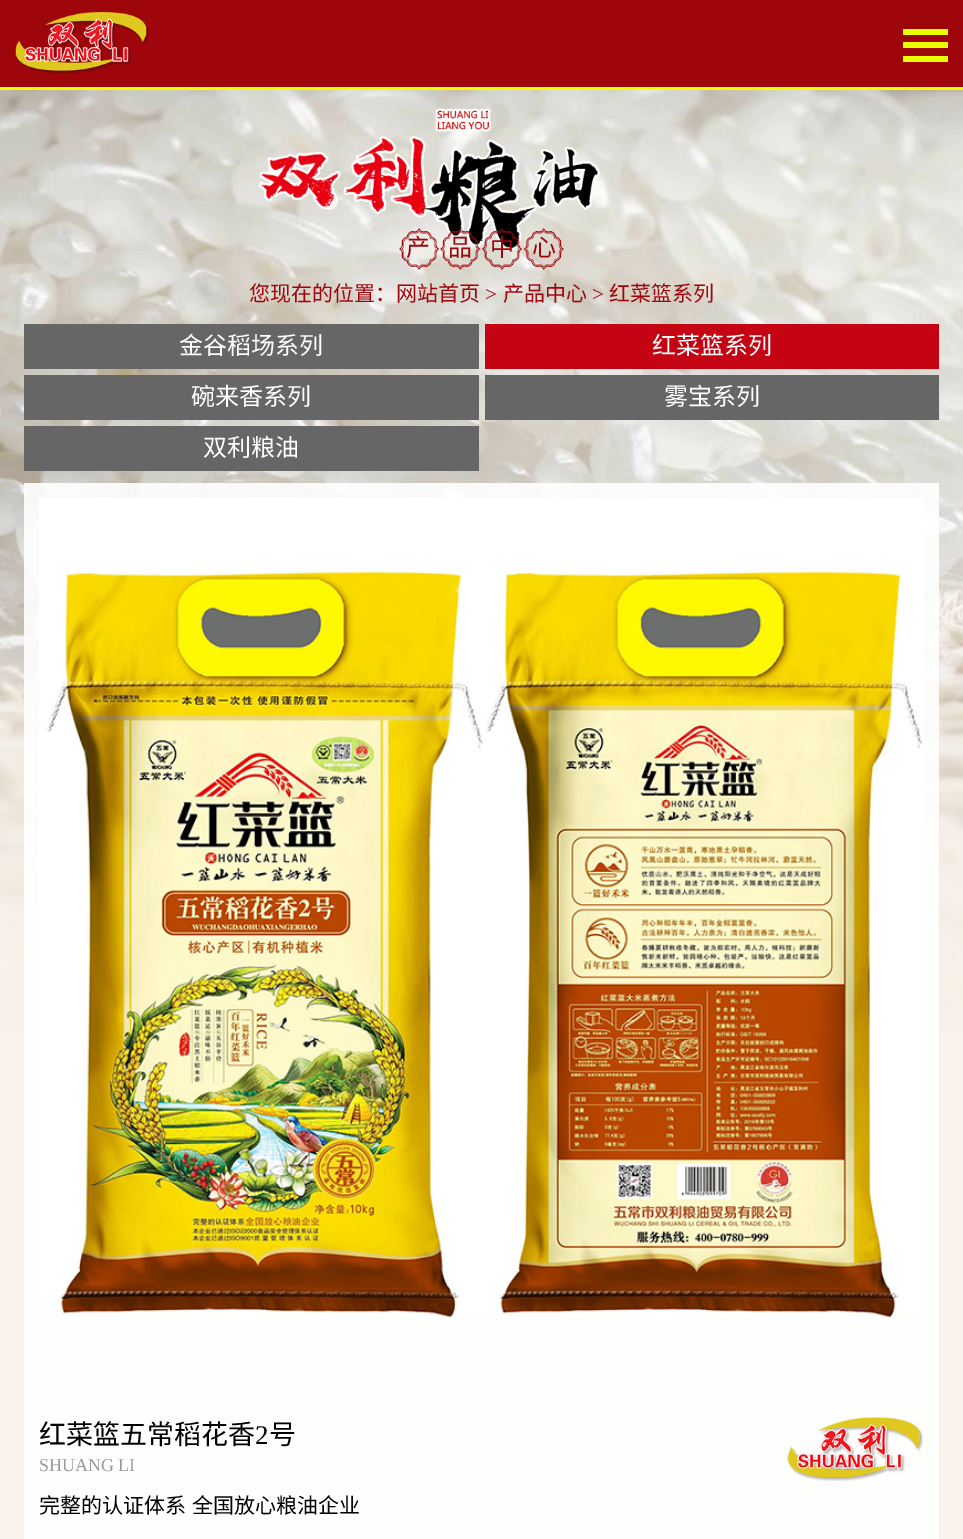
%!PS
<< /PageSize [963 1539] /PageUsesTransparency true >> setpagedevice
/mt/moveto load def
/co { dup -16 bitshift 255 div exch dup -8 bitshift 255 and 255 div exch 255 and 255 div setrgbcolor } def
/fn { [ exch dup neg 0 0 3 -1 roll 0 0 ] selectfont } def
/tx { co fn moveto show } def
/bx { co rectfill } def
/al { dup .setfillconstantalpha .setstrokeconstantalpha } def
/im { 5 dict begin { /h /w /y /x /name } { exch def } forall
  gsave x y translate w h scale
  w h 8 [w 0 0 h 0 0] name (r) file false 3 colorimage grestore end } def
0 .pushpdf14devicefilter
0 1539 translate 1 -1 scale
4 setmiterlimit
0 0 963 1539 16#FFFFFF bx
0 0 963 87 16#9F060C bx
0 87 963 3 16#EAFF00 bx
(media/1.raw) 15 12 134 62 im
903 29 45 6 16#EAFF00 bx
903 42 45 6 16#EAFF00 bx
903 56 45 6 16#EAFF00 bx
(media/2.raw) 0 90 963 1449 im
(media/3.raw) 258 108 342 143 im
(media/4.raw) 399 228 165 42 im
24 324 455 45 16#666666 bx
485 324 454 45 16#C50413 bx
24 375 455 45 16#666666 bx
485 375 454 45 16#666666 bx
24 426 455 45 16#666666 bx
0.9 al
24 483 915 1056 16#FFFFFF bx
1 al
(media/5.raw) 39 498 885 820 im
(media/6.raw) 787 1417 136 64 im
/NotoSansCJKSC-Regular 24 fn
16#9F060C co
406 256 mt 18 0 (产品中心) ashow
(您现在的位置：网站首页) 249 301 /NotoSansCJKSC-Regular 21 16#9F060C tx
(>) 485 301 /LiberationSerif-Regular 21 16#9F060C tx
(产品中心) 503 301 /NotoSansCJKSC-Regular 21 16#9F060C tx
(>) 592 301 /LiberationSerif-Regular 21 16#9F060C tx
(红菜篮系列) 609 301 /NotoSansCJKSC-Regular 21 16#9F060C tx
(金谷稻场系列) 179 354 /NotoSansCJKSC-Regular 24 16#FFFFFF tx
(红菜篮系列) 652 354 /NotoSansCJKSC-Regular 24 16#FFFFFF tx
(碗来香系列) 191 405 /NotoSansCJKSC-Regular 24 16#FFFFFF tx
(雾宝系列) 664 405 /NotoSansCJKSC-Regular 24 16#FFFFFF tx
(双利粮油) 203 456 /NotoSansCJKSC-Regular 24 16#FFFFFF tx
(红菜篮五常稻花香) 39 1444 /NotoSansCJKSC-Regular 27 16#000000 tx
(2) 255 1444 /LiberationSerif-Regular 27 16#000000 tx
(号) 269 1444 /NotoSansCJKSC-Regular 27 16#000000 tx
(SHUANG LI) 39 1471 /LiberationSerif-Regular 18 16#999999 tx
/NotoSansCJKSC-Regular 21 fn
16#000000 co
39 1513 mt 1 0 32 (完整的认证体系 全国放心粮油企业) widthshow
.poppdf14devicefilter showpage
